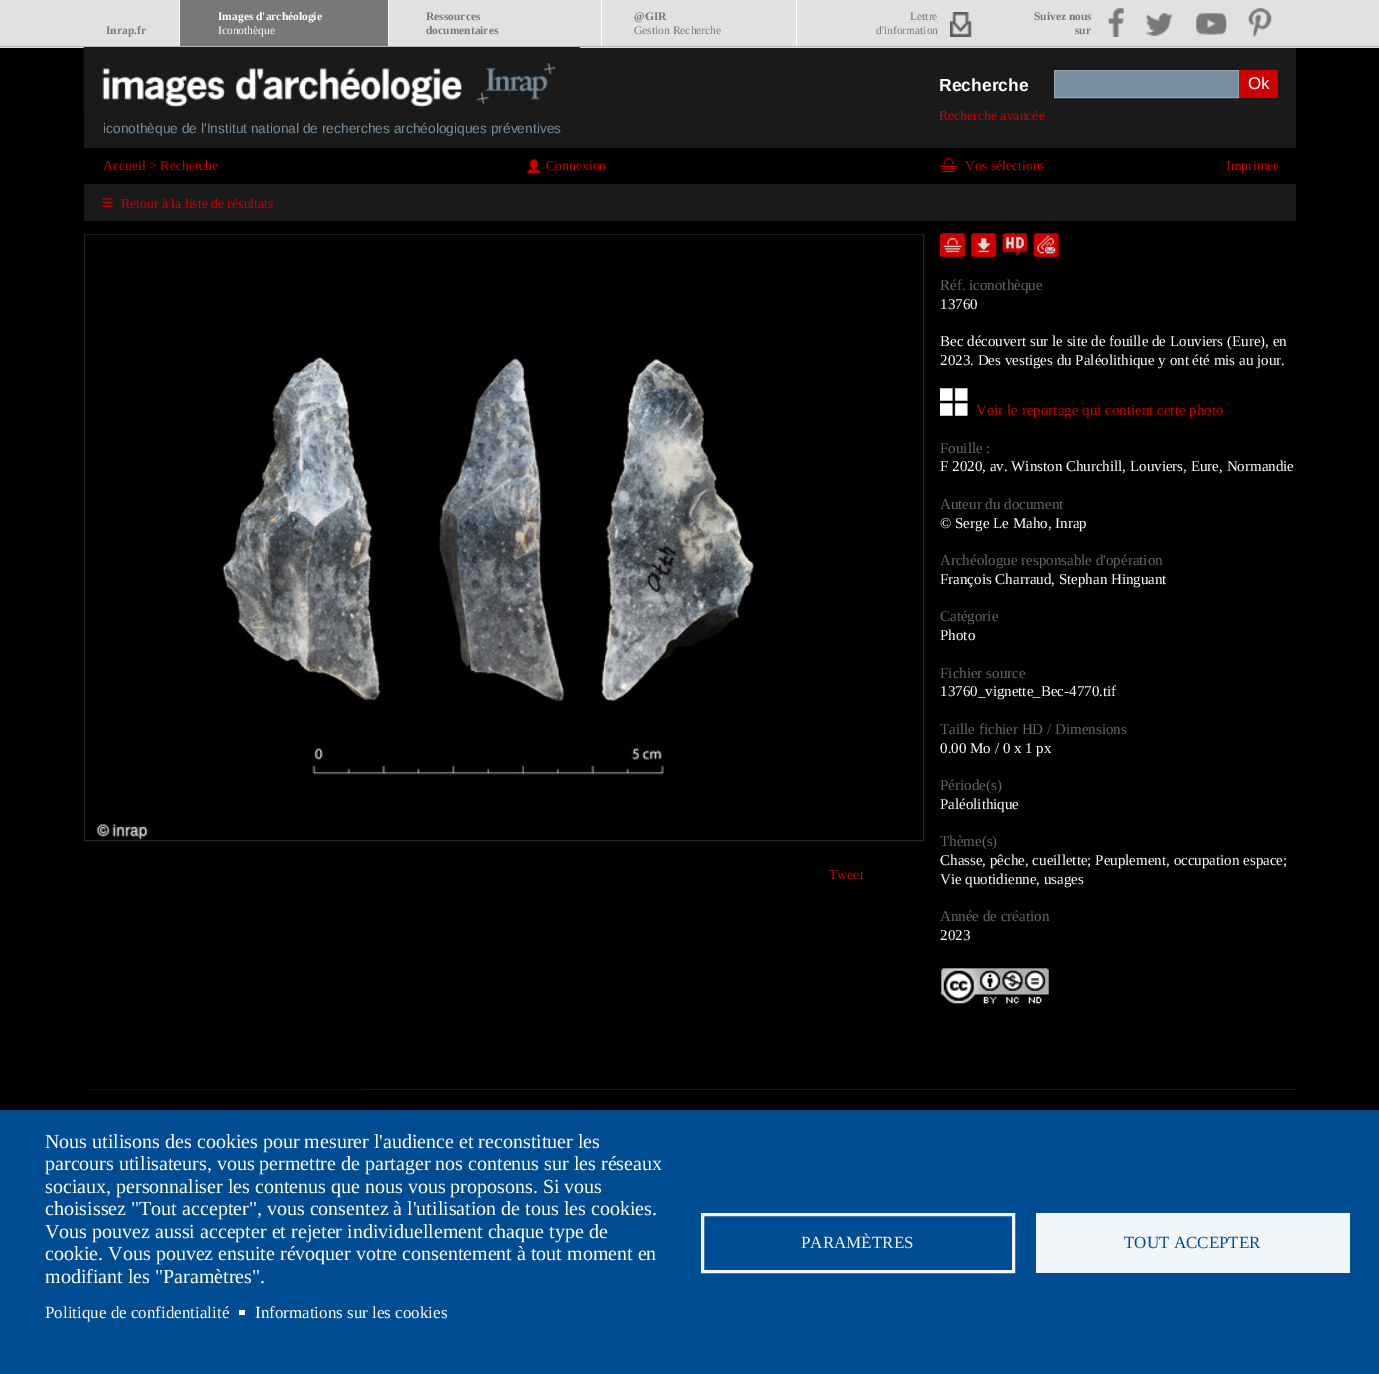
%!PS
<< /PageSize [1379 1374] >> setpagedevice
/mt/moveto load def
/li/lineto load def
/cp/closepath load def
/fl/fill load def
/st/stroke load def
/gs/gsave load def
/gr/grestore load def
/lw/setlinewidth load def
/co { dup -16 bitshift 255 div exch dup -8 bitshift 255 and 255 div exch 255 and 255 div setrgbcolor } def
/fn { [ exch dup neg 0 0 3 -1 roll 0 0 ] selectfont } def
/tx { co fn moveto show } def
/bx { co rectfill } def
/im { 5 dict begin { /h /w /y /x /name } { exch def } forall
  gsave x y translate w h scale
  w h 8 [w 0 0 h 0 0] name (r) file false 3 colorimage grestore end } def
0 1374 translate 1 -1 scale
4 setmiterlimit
0 0 1379 1374 16#000000 bx
0 0 1379 48 16#E1E1E1 bx
0 46 1379 1 16#B3B3B3 bx
179 0 1 46 16#FFFFFF bx
180 0 208 46 16#787878 bx
388 0 1 46 16#FFFFFF bx
601 0 1 46 16#FFFFFF bx
796 0 1 46 16#FFFFFF bx
(media/1.raw) 950 12 22 25 im
(media/2.raw) 1108 8 16 29 im
(media/3.raw) 1146 13 27 23 im
(media/4.raw) 1196 13 31 22 im
(media/5.raw) 1248 8 24 29 im
84 48 1212 100 16#1A1A1A bx
16#788E9E co
1054.5 70.5 mt 1238.5 70.5 li 1238.5 97.5 li 1054.5 97.5 li cp gs fl gr
16#93A5B1 co
st
1240 70 38 28 16#CC0000 bx
(media/6.raw) 83 47 497 65 im
(media/7.raw) 527 159 13 15 im
(media/8.raw) 940 158 18 14 im
84 184 1212 37 16#1A1A1A bx
(media/9.raw) 102 198 11 9 im
16#262626 co
84.5 234.5 839 606 rectstroke
(media/10.raw) 85 234 837 606 im
(media/11.raw) 940 233 25 24 im
(media/12.raw) 971 233 26 24 im
(media/13.raw) 1002 233 26 23 im
(media/14.raw) 1033 233 26 24 im
(media/15.raw) 940 388 28 28 im
(media/16.raw) 940 967 109 39 im
84 1089 1212 1 16#1A1A1A bx
(media/17.raw) 84 1089 280 21 im
0 1110 1379 264 16#004C93 bx
239 1310 6 5 16#FFFFFF bx
16#F2F6FA co
3 lw
702.5 1214.5 311 57 rectstroke
1036 1213 314 60 16#F2F6FA bx
(Inrap.fr) 106 34 /LiberationSerif-Bold 11.5 16#787878 tx
(Images d'archéologie) 218 20 /LiberationSerif-Bold 11.5 16#FFFFFF tx
(Iconothèque) 218 34 /LiberationSerif-Regular 11.5 16#FFFFFF tx
(Ressources) 426 20 /LiberationSerif-Bold 11.5 16#787878 tx
(documentaires) 426 34 /LiberationSerif-Bold 11.5 16#787878 tx
(@GIR) 634 20 /LiberationSerif-Bold 11.5 16#787878 tx
(Gestion Recherche) 634 34 /LiberationSerif-Regular 11.5 16#787878 tx
(Lettre) 910 20 /LiberationSerif-Regular 11.5 16#787878 tx
(d'information) 876 34 /LiberationSerif-Regular 11.5 16#787878 tx
(Suivez nous) 1034 20 /LiberationSerif-Bold 11.5 16#787878 tx
(sur) 1075 34 /LiberationSerif-Bold 11.5 16#787878 tx
(Recherche) 939 91 /LiberationSans-Bold 17.5 16#FFFFFF tx
(Ok) 1248 89 /LiberationSans-Regular 17 16#FFFFFF tx
(Recherche avancée) 939 120 /LiberationSerif-Regular 13.75 16#CC0000 tx
(iconothèque de l'Institut national de recherches archéologiques préventives) 103 133 /LiberationSans-Regular 13.75 16#788E9E tx
(Accueil > Recherche) 103 170 /LiberationSerif-Regular 13.75 16#CC0000 tx
(Connexion) 546 170 /LiberationSerif-Regular 13.75 16#CC0000 tx
(Vos sélections) 965 170 /LiberationSerif-Regular 13.75 16#CC0000 tx
(Imprimer) 1226 170 /LiberationSerif-Regular 13.75 16#CC0000 tx
(Retour à la liste de résultats) 121 208 /LiberationSerif-Regular 13.75 16#CC0000 tx
(Tweet) 829 879 /LiberationSerif-Regular 13.75 16#CC0000 tx
(Réf. iconothèque) 940 290 /LiberationSerif-Regular 15 16#666666 tx
(13760) 940 309 /LiberationSerif-Regular 15 16#FFFFFF tx
(Bec découvert sur le site de fouille de Louviers \(Eure\), en) 940 346 /LiberationSerif-Regular 15 16#FFFFFF tx
(2023. Des vestiges du Paléolithique y ont été mis au jour.) 940 365 /LiberationSerif-Regular 15 16#FFFFFF tx
(Voir le reportage qui contient cette photo) 976 415 /LiberationSerif-Regular 15 16#CC0000 tx
(Fouille :) 940 453 /LiberationSerif-Regular 15 16#666666 tx
(F 2020, av. Winston Churchill, Louviers, Eure, Normandie) 940 471 /LiberationSerif-Regular 15 16#FFFFFF tx
(Auteur du document) 940 509 /LiberationSerif-Regular 15 16#666666 tx
(© Serge Le Maho, Inrap) 940 528 /LiberationSerif-Regular 15 16#FFFFFF tx
(Archéologue responsable d'opération) 940 565 /LiberationSerif-Regular 15 16#666666 tx
(François Charraud, Stephan Hinguant) 940 584 /LiberationSerif-Regular 15 16#FFFFFF tx
(Catégorie) 940 621 /LiberationSerif-Regular 15 16#666666 tx
(Photo) 940 640 /LiberationSerif-Regular 15 16#FFFFFF tx
(Fichier source) 940 678 /LiberationSerif-Regular 15 16#666666 tx
(13760_vignette_Bec-4770.tif) 940 696 /LiberationSerif-Regular 15 16#FFFFFF tx
(Taille fichier HD / Dimensions) 940 734 /LiberationSerif-Regular 15 16#666666 tx
(0.00 Mo / 0 x 1 px) 940 753 /LiberationSerif-Regular 15 16#FFFFFF tx
(Période\(s\)) 940 790 /LiberationSerif-Regular 15 16#666666 tx
(Paléolithique) 940 809 /LiberationSerif-Regular 15 16#FFFFFF tx
(Thème\(s\)) 940 846 /LiberationSerif-Regular 15 16#666666 tx
(Chasse, pêche, cueillette; Peuplement, occupation espace;) 940 865 /LiberationSerif-Regular 15 16#FFFFFF tx
(Vie quotidienne, usages) 940 884 /LiberationSerif-Regular 15 16#FFFFFF tx
(Année de création) 940 921 /LiberationSerif-Regular 15 16#666666 tx
(2023) 940 940 /LiberationSerif-Regular 15 16#FFFFFF tx
(Nous utilisons des cookies pour mesurer l'audience et reconstituer les) 45 1148 /LiberationSerif-Regular 20 16#FFFFFF tx
(parcours utilisateurs, vous permettre de partager nos contenus sur les réseaux) 45 1170 /LiberationSerif-Regular 20 16#FFFFFF tx
(sociaux, personnaliser les contenus que nous vous proposons. Si vous) 45 1193 /LiberationSerif-Regular 20 16#FFFFFF tx
(choisissez "Tout accepter", vous consentez à l'utilisation de tous les cookies.) 45 1215 /LiberationSerif-Regular 20 16#FFFFFF tx
(Vous pouvez aussi accepter et rejeter individuellement chaque type de) 45 1238 /LiberationSerif-Regular 20 16#FFFFFF tx
(cookie. Vous pouvez ensuite révoquer votre consentement à tout moment en) 45 1260 /LiberationSerif-Regular 20 16#FFFFFF tx
(modifiant les "Paramètres".) 45 1283 /LiberationSerif-Regular 20 16#FFFFFF tx
(Politique de confidentialité) 45 1318 /LiberationSerif-Regular 17 16#FFFFFF tx
(Informations sur les cookies) 255 1318 /LiberationSerif-Regular 17 16#FFFFFF tx
(PARAMÈTRES) 801 1248 /LiberationSerif-Regular 17 16#F2F6FA tx
(TOUT ACCEPTER) 1124 1248 /LiberationSerif-Regular 17 16#004C93 tx
showpage
